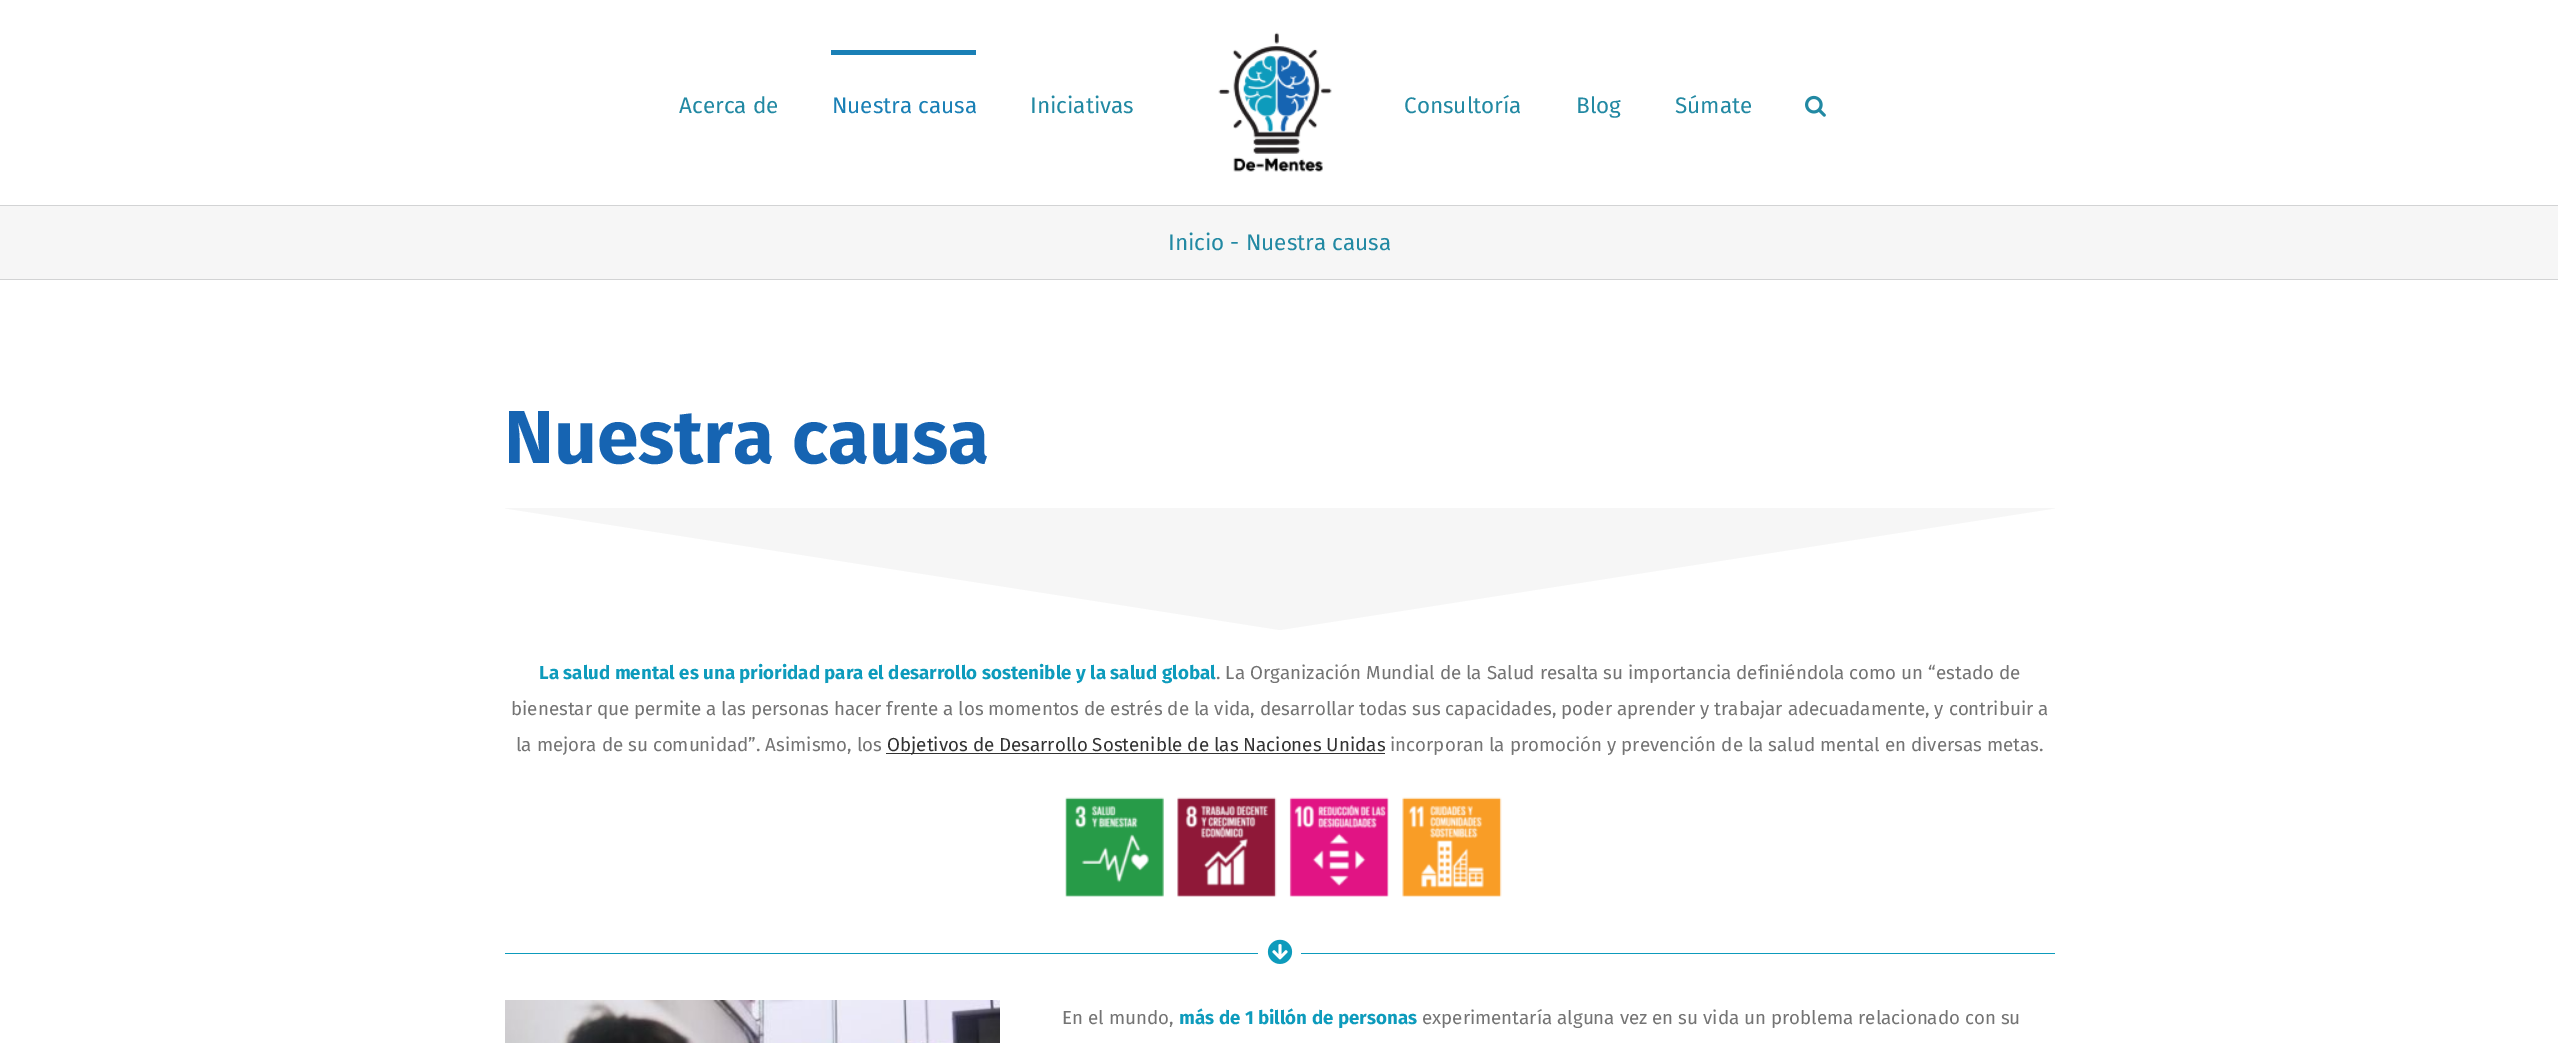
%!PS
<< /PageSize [2558 1043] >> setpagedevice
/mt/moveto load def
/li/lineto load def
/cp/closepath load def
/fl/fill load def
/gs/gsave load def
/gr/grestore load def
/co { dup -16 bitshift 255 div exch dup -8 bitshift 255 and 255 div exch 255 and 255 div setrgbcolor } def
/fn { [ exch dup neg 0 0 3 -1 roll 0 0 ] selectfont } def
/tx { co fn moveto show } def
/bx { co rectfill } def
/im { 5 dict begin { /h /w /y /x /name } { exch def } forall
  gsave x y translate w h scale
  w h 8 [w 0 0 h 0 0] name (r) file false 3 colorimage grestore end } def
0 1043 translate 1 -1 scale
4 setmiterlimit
0 0 2558 1043 16#FFFFFF bx
831 50 145 5 16#1A80B6 bx
(media/1.raw) 1218 32 114 140 im
(media/2.raw) 1805 95 21 22 im
0 206 2558 73 16#F6F6F6 bx
0 205 2558 1 16#D2D3D4 bx
0 279 2558 1 16#D2D3D4 bx
gs
505 508 1550 123 rectclip
16#F6F6F6 co
490 506 mt 1280 630 li 2070 506 li cp fl
gr
886 753 499 1 16#333333 bx
(media/3.raw) 1065 797 437 100 im
505 953 753 1 16#0D9BBC bx
(media/4.raw) 1267 939 26 25 im
1301 953 754 1 16#0D9BBC bx
(media/5.raw) 505 1000 495 43 im
(Acerca de) 679 113 /FiraSans-Regular 22.5 16#2289A3 tx
(Nuestra causa) 832 113 /FiraSans-Regular 22.5 16#1A80B6 tx
(Iniciativas) 1030 113 /FiraSans-Regular 22.5 16#2289A3 tx
(Consultoría) 1404 113 /FiraSans-Regular 22.5 16#2289A3 tx
(Blog) 1576 113 /FiraSans-Regular 22.5 16#2289A3 tx
(Súmate) 1675 113 /FiraSans-Regular 22.5 16#2289A3 tx
(Inicio) 1168 250 /FiraSans-Regular 22.5 16#2289A3 tx
(-) 1230 250 /FiraSans-Regular 22.5 16#2289A3 tx
(Nuestra causa) 1246 250 /FiraSans-Regular 22.5 16#2289A3 tx
(Nuestra causa) 504 463 /FiraSans-Bold 75 16#1664B2 tx
(La salud mental es una prioridad para el desarrollo sostenible y la salud global) 539 679 /FiraSans-Bold 18.75 16#0D9BBC tx
(. La Organización Mundial de la Salud resalta su importancia definiéndola como un “estado de) 1216 679 /FiraSans-Regular 18.75 16#747474 tx
(bienestar que permite a las personas hacer frente a los momentos de estrés de la vida, desarrollar todas sus capacidades, poder aprender y trabajar adecuadamente, y contribuir a) 511 715 /FiraSans-Regular 18.75 16#747474 tx
(la mejora de su comunidad”. Asimismo, los) 516 751 /FiraSans-Regular 18.75 16#747474 tx
(Objetivos de Desarrollo Sostenible de las Naciones Unidas) 887 751 /FiraSans-Regular 18.75 16#333333 tx
(incorporan la promoción y prevención de la salud mental en diversas metas.) 1390 751 /FiraSans-Regular 18.75 16#747474 tx
(En el mundo,) 1062 1024 /FiraSans-Regular 18.75 16#747474 tx
(más de 1 billón de personas) 1179 1024 /FiraSans-Bold 18.75 16#0D9BBC tx
(experimentaría alguna vez en su vida un problema relacionado con su) 1422 1024 /FiraSans-Regular 18.75 16#747474 tx
showpage
